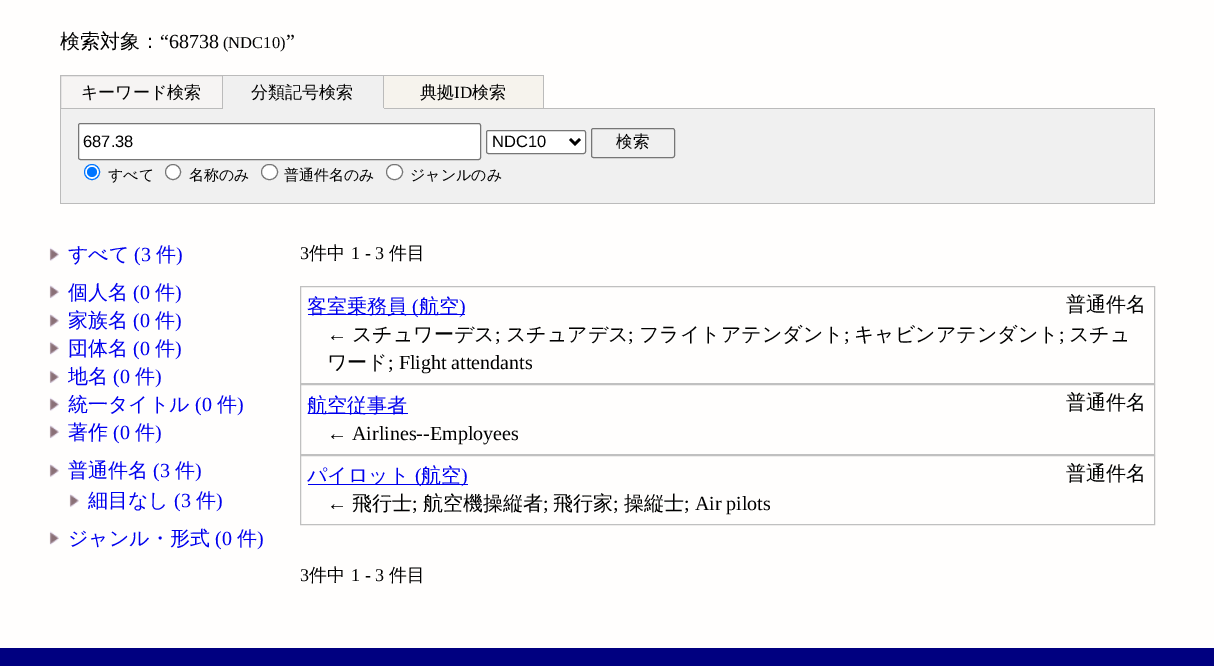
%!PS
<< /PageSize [1214 666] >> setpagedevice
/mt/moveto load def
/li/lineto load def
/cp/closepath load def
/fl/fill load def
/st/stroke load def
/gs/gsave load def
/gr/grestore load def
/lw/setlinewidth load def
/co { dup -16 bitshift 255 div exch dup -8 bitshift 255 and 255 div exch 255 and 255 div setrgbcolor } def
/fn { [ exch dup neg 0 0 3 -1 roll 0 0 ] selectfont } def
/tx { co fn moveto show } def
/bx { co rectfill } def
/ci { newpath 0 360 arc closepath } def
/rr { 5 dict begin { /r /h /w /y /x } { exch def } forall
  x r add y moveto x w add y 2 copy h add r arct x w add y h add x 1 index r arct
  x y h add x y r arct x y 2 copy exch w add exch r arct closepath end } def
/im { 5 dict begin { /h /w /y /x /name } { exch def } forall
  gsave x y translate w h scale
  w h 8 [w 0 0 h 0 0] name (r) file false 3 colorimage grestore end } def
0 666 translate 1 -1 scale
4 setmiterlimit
0 0 1214 666 16#FFFEFD bx
16#F6F4F3 co
60.5 75.5 mt 222.5 75.5 li 222.5 108.5 li 60.5 108.5 li cp gs fl gr
16#BBBBBB co
st
223 76 160 32 16#F0F0F0 bx
223 75 321 1 16#BBBBBB bx
383 75 1 34 16#BBBBBB bx
223 108 161 1 16#F0F0F0 bx
384 76 159 32 16#F6F3ED bx
543 75 1 34 16#BBBBBB bx
384 108 160 1 16#BBBBBB bx
544 108 611 1 16#BBBBBB bx
61 109 1093 94 16#F0F0F0 bx
1154 109 1 95 16#BBBBBB bx
60 203 1095 1 16#BBBBBB bx
60 109 1 95 16#BBBBBB bx
16#FFFFFF co
78.5 123.5 402 36 2 rr gs fl gr
16#767676 co
st
16#FFFFFF co
486.5 130.5 99 23 2 rr gs fl gr
16#767676 co
st
16#000000 co
2.5 lw
570 139 mt 575 144 li 580 139 li st
16#767676 co
1 lw
591.5 128.5 83 29 2 rr st
16#FFFFFF co
92 172 7.5 ci gs fl gr
16#0075FF co
st
92 172 5 ci fl
16#FFFFFF co
173 172 7.5 ci gs fl gr
16#767676 co
st
16#FFFFFF co
261.5 164.5 16 15 7.5 rr gs fl gr
16#767676 co
st
16#FFFFFF co
386.5 164.5 16 15 7.5 rr gs fl gr
16#767676 co
st
(media/1.raw) 49 247 10 14 im
(media/2.raw) 49 285 10 14 im
(media/3.raw) 49 314 10 14 im
(media/4.raw) 49 341 10 14 im
(media/2.raw) 49 370 10 14 im
(media/1.raw) 49 397 10 14 im
(media/2.raw) 49 425 10 14 im
(media/5.raw) 49 464 10 14 im
(media/5.raw) 69 494 10 14 im
(media/4.raw) 49 531 10 14 im
16#C0C0C0 co
300.5 286.5 854 97 rectstroke
308 314 157 1 16#0000EE bx
16#C0C0C0 co
300.5 384.5 854 70 rectstroke
308 413 100 1 16#0000EE bx
16#C0C0C0 co
300.5 455.5 854 69 rectstroke
308 484 160 1 16#0000EE bx
0 648 1214 18 16#000080 bx
(検索対象：) 60 48 /WenQuanYiZenHei-Medium 20 16#000000 tx
(“68738) 160 48 /LiberationSerif-Regular 20 16#000000 tx
(\(NDC10\)) 223 48 /LiberationSerif-Regular 16.5 16#000000 tx
(”) 286 48 /LiberationSerif-Regular 20 16#000000 tx
(キーワード検索) 81 98 /WenQuanYiZenHei-Medium 17 16#000000 tx
(分類記号検索) 251 98 /WenQuanYiZenHei-Medium 17 16#000000 tx
(典拠) 420 98 /WenQuanYiZenHei-Medium 17 16#000000 tx
(ID) 454 98 /LiberationSerif-Regular 17 16#000000 tx
(検索) 472 98 /WenQuanYiZenHei-Medium 17 16#000000 tx
(687.38) 83 147 /LiberationSans-Regular 16.5 16#000000 tx
(NDC10) 492 147 /LiberationSans-Regular 16.5 16#000000 tx
(検索) 616 147 /WenQuanYiZenHei-Medium 16.5 16#000000 tx
(すべて) 108 180 /WenQuanYiZenHei-Medium 15 16#000000 tx
(名称のみ) 189 180 /WenQuanYiZenHei-Medium 15 16#000000 tx
(普通件名のみ) 284 180 /WenQuanYiZenHei-Medium 15 16#000000 tx
(ジャンルのみ) 410 180 /WenQuanYiZenHei-Medium 15 16#000000 tx
(すべて) 68 261 /WenQuanYiZenHei-Medium 20 16#0000EE tx
(\(3) 134 261 /LiberationSerif-Regular 20 16#0000EE tx
(件) 156 261 /WenQuanYiZenHei-Medium 20 16#0000EE tx
(\)) 176 261 /LiberationSerif-Regular 20 16#0000EE tx
(個人名) 68 299 /WenQuanYiZenHei-Medium 20 16#0000EE tx
(\(0) 133 299 /LiberationSerif-Regular 20 16#0000EE tx
(件) 155 299 /WenQuanYiZenHei-Medium 20 16#0000EE tx
(\)) 175 299 /LiberationSerif-Regular 20 16#0000EE tx
(家族名) 68 327 /WenQuanYiZenHei-Medium 20 16#0000EE tx
(\(0) 133 327 /LiberationSerif-Regular 20 16#0000EE tx
(件) 155 327 /WenQuanYiZenHei-Medium 20 16#0000EE tx
(\)) 175 327 /LiberationSerif-Regular 20 16#0000EE tx
(団体名) 68 355 /WenQuanYiZenHei-Medium 20 16#0000EE tx
(\(0) 133 355 /LiberationSerif-Regular 20 16#0000EE tx
(件) 155 355 /WenQuanYiZenHei-Medium 20 16#0000EE tx
(\)) 175 355 /LiberationSerif-Regular 20 16#0000EE tx
(地名) 68 383 /WenQuanYiZenHei-Medium 20 16#0000EE tx
(\(0) 113 383 /LiberationSerif-Regular 20 16#0000EE tx
(件) 135 383 /WenQuanYiZenHei-Medium 20 16#0000EE tx
(\)) 155 383 /LiberationSerif-Regular 20 16#0000EE tx
(統一タイトル) 68 411 /WenQuanYiZenHei-Medium 20 16#0000EE tx
(\(0) 195 411 /LiberationSerif-Regular 20 16#0000EE tx
(件) 217 411 /WenQuanYiZenHei-Medium 20 16#0000EE tx
(\)) 237 411 /LiberationSerif-Regular 20 16#0000EE tx
(著作) 68 439 /WenQuanYiZenHei-Medium 20 16#0000EE tx
(\(0) 113 439 /LiberationSerif-Regular 20 16#0000EE tx
(件) 135 439 /WenQuanYiZenHei-Medium 20 16#0000EE tx
(\)) 155 439 /LiberationSerif-Regular 20 16#0000EE tx
(普通件名) 68 477 /WenQuanYiZenHei-Medium 20 16#0000EE tx
(\(3) 153 477 /LiberationSerif-Regular 20 16#0000EE tx
(件) 175 477 /WenQuanYiZenHei-Medium 20 16#0000EE tx
(\)) 195 477 /LiberationSerif-Regular 20 16#0000EE tx
(細目なし) 88 507 /WenQuanYiZenHei-Medium 20 16#0000EE tx
(\(3) 174 507 /LiberationSerif-Regular 20 16#0000EE tx
(件) 196 507 /WenQuanYiZenHei-Medium 20 16#0000EE tx
(\)) 216 507 /LiberationSerif-Regular 20 16#0000EE tx
(ジャンル・形式) 68 545 /WenQuanYiZenHei-Medium 20 16#0000EE tx
(\(0) 215 545 /LiberationSerif-Regular 20 16#0000EE tx
(件) 237 545 /WenQuanYiZenHei-Medium 20 16#0000EE tx
(\)) 257 545 /LiberationSerif-Regular 20 16#0000EE tx
(3) 300 259 /LiberationSerif-Regular 18 16#000000 tx
(件中) 309 259 /WenQuanYiZenHei-Medium 18 16#000000 tx
(1 - 3) 351 259 /LiberationSerif-Regular 18 16#000000 tx
(件目) 389 259 /WenQuanYiZenHei-Medium 18 16#000000 tx
(客室乗務員) 307 313 /WenQuanYiZenHei-Medium 20 16#0000EE tx
(\() 412 313 /LiberationSerif-Regular 20 16#0000EE tx
(航空) 419 313 /WenQuanYiZenHei-Medium 20 16#0000EE tx
(\)) 459 313 /LiberationSerif-Regular 20 16#0000EE tx
(普通件名) 1066 311 /WenQuanYiZenHei-Medium 20 16#000000 tx
(←) 327 341 /LiberationSerif-Regular 20 16#000000 tx
(スチュワーデス) 352 341 /WenQuanYiZenHei-Medium 20 16#000000 tx
(;) 495 341 /LiberationSerif-Regular 20 16#000000 tx
(スチュアデス) 506 341 /WenQuanYiZenHei-Medium 20 16#000000 tx
(;) 628 341 /LiberationSerif-Regular 20 16#000000 tx
(フライトアテンダント) 639 341 /WenQuanYiZenHei-Medium 20 16#000000 tx
(;) 844 341 /LiberationSerif-Regular 20 16#000000 tx
(キャビンアテンダント) 854 341 /WenQuanYiZenHei-Medium 20 16#000000 tx
(;) 1059 341 /LiberationSerif-Regular 20 16#000000 tx
(スチュ) 1069 341 /WenQuanYiZenHei-Medium 20 16#000000 tx
(ワード) 327 369 /WenQuanYiZenHei-Medium 20 16#000000 tx
(; Flight attendants) 388 369 /LiberationSerif-Regular 20 16#000000 tx
(航空従事者) 307 412 /WenQuanYiZenHei-Medium 20 16#0000EE tx
(普通件名) 1066 409 /WenQuanYiZenHei-Medium 20 16#000000 tx
(← Airlines--Employees) 327 440 /LiberationSerif-Regular 20 16#000000 tx
(パイロット) 307 482 /WenQuanYiZenHei-Medium 20 16#0000EE tx
(\() 415 482 /LiberationSerif-Regular 20 16#0000EE tx
(航空) 421 482 /WenQuanYiZenHei-Medium 20 16#0000EE tx
(\)) 461 482 /LiberationSerif-Regular 20 16#0000EE tx
(普通件名) 1066 480 /WenQuanYiZenHei-Medium 20 16#000000 tx
(←) 327 510 /LiberationSerif-Regular 20 16#000000 tx
(飛行士) 352 510 /WenQuanYiZenHei-Medium 20 16#000000 tx
(;) 412 510 /LiberationSerif-Regular 20 16#000000 tx
(航空機操縦者) 423 510 /WenQuanYiZenHei-Medium 20 16#000000 tx
(;) 543 510 /LiberationSerif-Regular 20 16#000000 tx
(飛行家) 553 510 /WenQuanYiZenHei-Medium 20 16#000000 tx
(;) 613 510 /LiberationSerif-Regular 20 16#000000 tx
(操縦士) 624 510 /WenQuanYiZenHei-Medium 20 16#000000 tx
(; Air pilots) 684 510 /LiberationSerif-Regular 20 16#000000 tx
(3) 300 581 /LiberationSerif-Regular 18 16#000000 tx
(件中) 309 581 /WenQuanYiZenHei-Medium 18 16#000000 tx
(1 - 3) 351 581 /LiberationSerif-Regular 18 16#000000 tx
(件目) 389 581 /WenQuanYiZenHei-Medium 18 16#000000 tx
showpage
